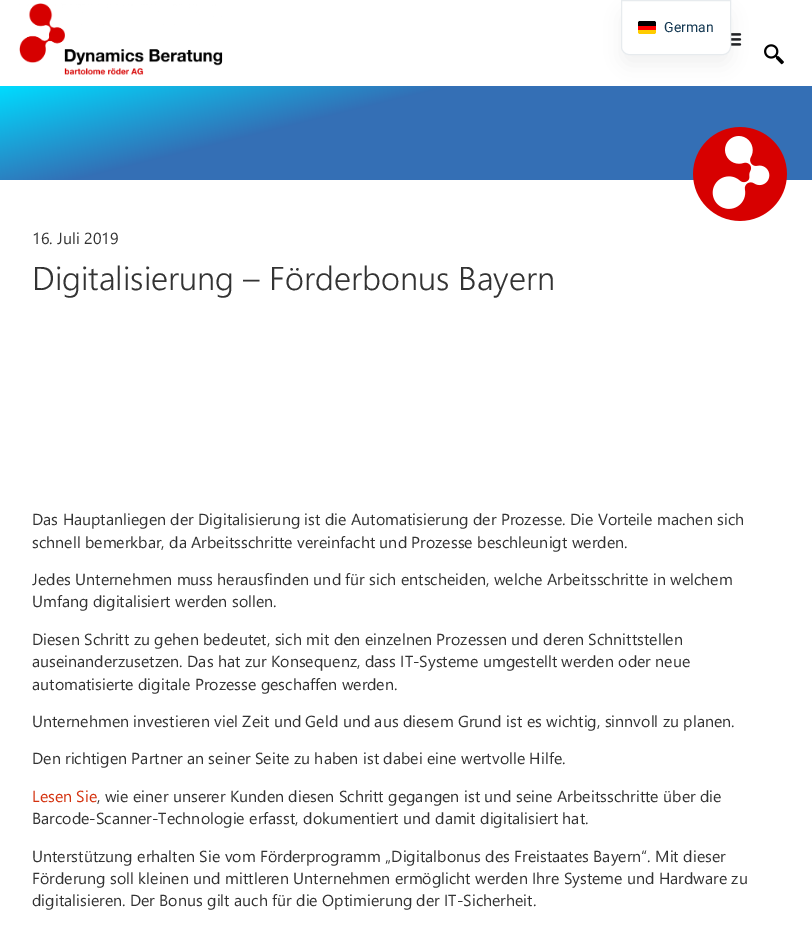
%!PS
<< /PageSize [812 940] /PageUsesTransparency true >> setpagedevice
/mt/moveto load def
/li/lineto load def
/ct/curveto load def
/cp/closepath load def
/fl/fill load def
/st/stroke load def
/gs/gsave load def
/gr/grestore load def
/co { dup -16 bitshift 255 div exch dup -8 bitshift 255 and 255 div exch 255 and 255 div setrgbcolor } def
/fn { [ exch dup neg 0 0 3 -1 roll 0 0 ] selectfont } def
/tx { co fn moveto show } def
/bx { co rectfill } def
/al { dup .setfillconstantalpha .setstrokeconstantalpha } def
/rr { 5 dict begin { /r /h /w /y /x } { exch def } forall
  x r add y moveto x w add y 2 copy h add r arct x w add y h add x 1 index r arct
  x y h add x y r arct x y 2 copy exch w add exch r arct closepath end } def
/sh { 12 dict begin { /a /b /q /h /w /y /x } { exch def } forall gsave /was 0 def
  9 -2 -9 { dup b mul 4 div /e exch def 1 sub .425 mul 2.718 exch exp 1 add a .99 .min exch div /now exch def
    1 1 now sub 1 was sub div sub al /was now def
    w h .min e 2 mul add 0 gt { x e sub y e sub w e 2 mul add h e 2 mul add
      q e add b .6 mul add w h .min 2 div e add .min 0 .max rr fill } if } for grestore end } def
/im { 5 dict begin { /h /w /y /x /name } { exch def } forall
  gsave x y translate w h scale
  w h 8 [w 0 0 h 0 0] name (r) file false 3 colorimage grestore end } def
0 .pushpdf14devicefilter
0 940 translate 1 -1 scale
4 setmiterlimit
0 0 812 940 16#FFFFFF bx
(media/1.raw) 19 3 204 72 im
(media/2.raw) 731 33 11 13 im
(media/3.raw) 764 44 20 21 im
gs 0 86 mt 812 86 li 812 180 li 0 180 li cp clip newpath
<< /ShadingType 2 /ColorSpace /DeviceRGB /Coords [371 -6.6 441 273] /Extend [true true] /Function << /FunctionType 3 /Domain [0 1] /Functions [<< /FunctionType 2 /Domain [0 1] /C0 [0 .863 1] /C1 [.204 .435 .71] /N 1 >> << /FunctionType 2 /Domain [0 1] /C0 [.204 .435 .71] /C1 [.204 .435 .71] /N 1 >>] /Bounds [.38] /Encode [0 1 0 1] >> >> shfill gr
16#000000 co
621 10 110 55 8 10 .05 sh
16#FFFFFF co
621.5 .5 mt 730.5 .5 li 730.5 47 li 730.5 51 727 54.5 723 54.5 ct 629 54.5 li 625 54.5 621.5 51 621.5 47 ct cp gs fl gr
16#E7EBEE co
st
16#FFCC00 co
638 30 mt 656 30 li 656 32 li 656 33 655 34 654 34 ct 640 34 li 639 34 638 33 638 32 ct cp fl
16#000001 co
640 21 mt 654 21 li 655 21 656 22 656 23 ct 656 26 li 638 26 li 638 23 li 638 22 639 21 640 21 ct cp fl
638 26 18 4 16#FF0000 bx
(media/4.raw) 693 127 94 94 im
(German) 664 32 /Roboto-Regular 14 16#143852 tx
(16. Juli 2019) 32 244 /SegoeUI-Regular 16 16#333333 tx
(Digitalisierung – Förderbonus Bayern) 32 290 /SegoeUI-Light 33 16#333333 tx
(Das Hauptanliegen der Digitalisierung ist die Automatisierung der Prozesse. Die Vorteile machen sich) 32 525 /SegoeUI-Regular 16 16#333333 tx
(schnell bemerkbar, da Arbeitsschritte vereinfacht und Prozesse beschleunigt werden.) 32 548 /SegoeUI-Regular 16 16#333333 tx
(Jedes Unternehmen muss herausfinden und für sich entscheiden, welche Arbeitsschritte in welchem) 32 585 /SegoeUI-Regular 16 16#333333 tx
(Umfang digitalisiert werden sollen.) 32 607 /SegoeUI-Regular 16 16#333333 tx
(Diesen Schritt zu gehen bedeutet, sich mit den einzelnen Prozessen und deren Schnittstellen) 32 645 /SegoeUI-Regular 16 16#333333 tx
(auseinanderzusetzen. Das hat zur Konsequenz, dass IT-Systeme umgestellt werden oder neue) 32 667 /SegoeUI-Regular 16 16#333333 tx
(automatisierte digitale Prozesse geschaffen werden.) 32 690 /SegoeUI-Regular 16 16#333333 tx
(Unternehmen investieren viel Zeit und Geld und aus diesem Grund ist es wichtig, sinnvoll zu planen.) 32 727 /SegoeUI-Regular 16 16#333333 tx
(Den richtigen Partner an seiner Seite zu haben ist dabei eine wertvolle Hilfe.) 32 764 /SegoeUI-Regular 16 16#333333 tx
(Lesen Sie) 32 802 /SegoeUI-Regular 16 16#D4320F tx
(, wie einer unserer Kunden diesen Schritt gegangen ist und seine Arbeitsschritte über die) 97 802 /SegoeUI-Regular 16 16#333333 tx
(Barcode-Scanner-Technologie erfasst, dokumentiert und damit digitalisiert hat.) 32 824 /SegoeUI-Regular 16 16#333333 tx
(Unterstützung erhalten Sie vom Förderprogramm „Digitalbonus des Freistaates Bayern“. Mit dieser) 32 862 /SegoeUI-Regular 16 16#333333 tx
(Förderung soll kleinen und mittleren Unternehmen ermöglicht werden Ihre Systeme und Hardware zu) 32 884 /SegoeUI-Regular 16 16#333333 tx
(digitalisieren. Der Bonus gilt auch für die Optimierung der IT-Sicherheit.) 32 906 /SegoeUI-Regular 16 16#333333 tx
.poppdf14devicefilter showpage
